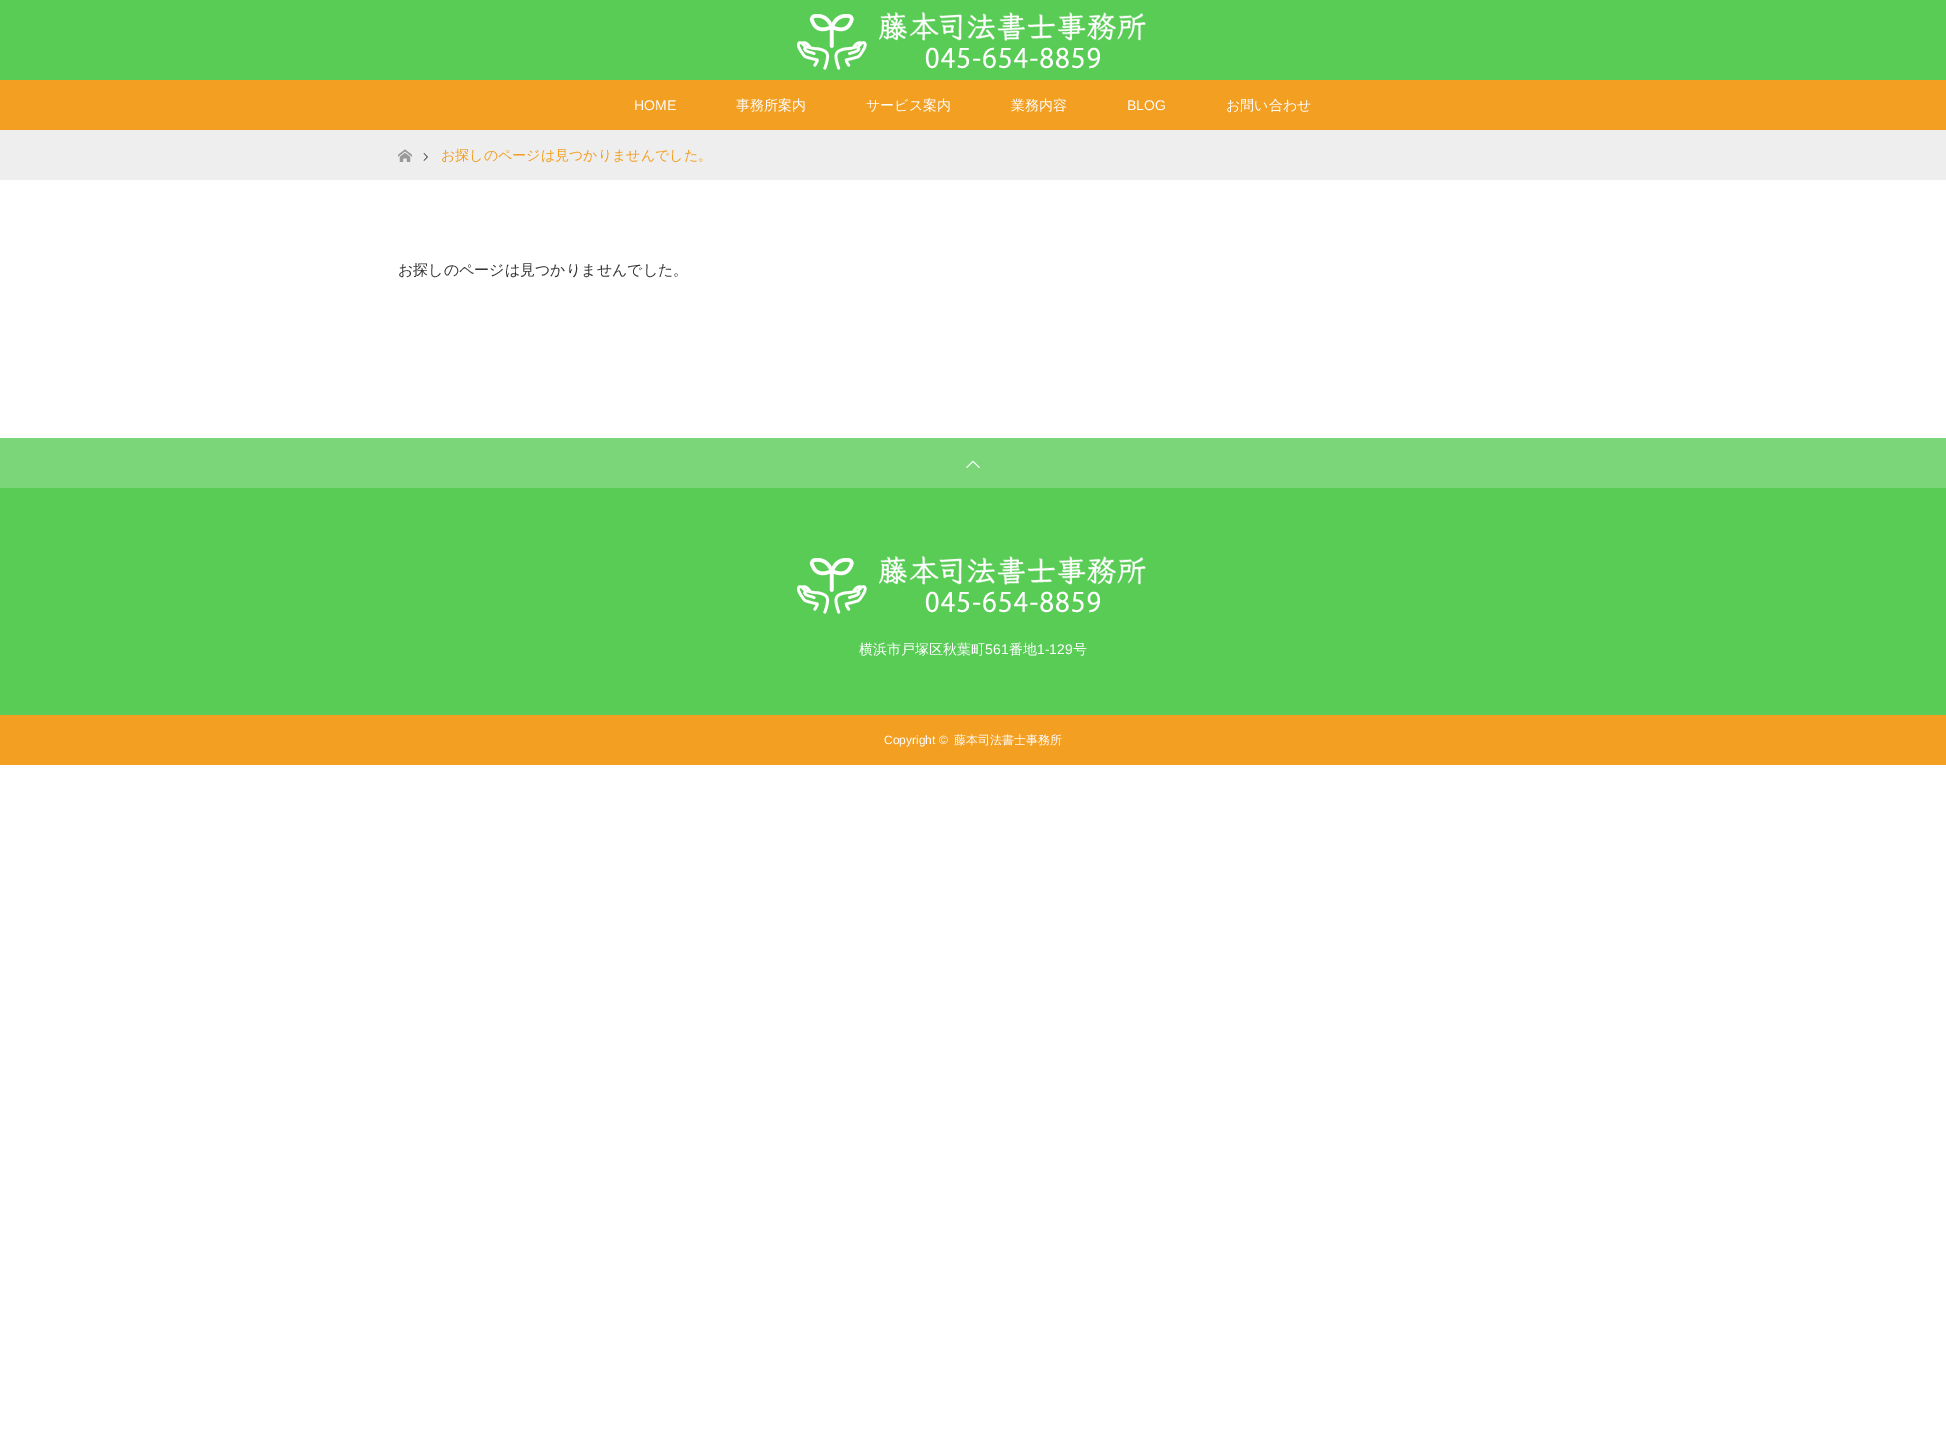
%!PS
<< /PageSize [1946 1445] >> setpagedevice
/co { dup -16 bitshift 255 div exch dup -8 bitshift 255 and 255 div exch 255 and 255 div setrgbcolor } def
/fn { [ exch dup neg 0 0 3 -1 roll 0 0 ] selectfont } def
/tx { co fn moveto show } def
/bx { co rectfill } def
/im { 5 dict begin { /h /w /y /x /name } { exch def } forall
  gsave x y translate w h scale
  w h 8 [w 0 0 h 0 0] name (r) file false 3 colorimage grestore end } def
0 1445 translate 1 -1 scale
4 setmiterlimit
0 0 1946 1445 16#FFFFFF bx
0 0 1946 80 16#59CC56 bx
(media/1.raw) 797 12 349 58 im
0 80 1946 50 16#F29F22 bx
0 130 1946 50 16#EEEEEE bx
(media/2.raw) 398 149 14 13 im
(media/3.raw) 423 153 5 8 im
0 438 1946 50 16#7AD678 bx
(media/4.raw) 966 460 14 8 im
0 488 1946 227 16#59CC56 bx
(media/1.raw) 797 556 349 58 im
0 715 1946 50 16#F29F22 bx
(HOME) 634 110 /LiberationSans-Regular 14 16#FFFFFF tx
(事務所案内) 736 110 /WenQuanYiZenHei-Medium 14 16#FFFFFF tx
(サービス案内) 866 110 /WenQuanYiZenHei-Medium 14 16#FFFFFF tx
(業務内容) 1011 110 /WenQuanYiZenHei-Medium 14 16#FFFFFF tx
(BLOG) 1127 110 /LiberationSans-Regular 14 16#FFFFFF tx
(お問い合わせ) 1226 110 /WenQuanYiZenHei-Medium 14 16#FFFFFF tx
(お探しのページは見つかりませんでした。) 441 160 /WenQuanYiZenHei-Medium 14 16#F29F22 tx
(お探しのページは見つかりませんでした。) 398 275 /WenQuanYiZenHei-Medium 15 16#333333 tx
(横浜市戸塚区秋葉町) 859 654 /WenQuanYiZenHei-Medium 14 16#FFFFFF tx
(561) 985 654 /LiberationSans-Regular 14 16#FFFFFF tx
(番地) 1009 654 /WenQuanYiZenHei-Medium 14 16#FFFFFF tx
(1-129) 1037 654 /LiberationSans-Regular 14 16#FFFFFF tx
(号) 1073 654 /WenQuanYiZenHei-Medium 14 16#FFFFFF tx
(Copyright ©) 884 744 /LiberationSans-Regular 12 16#FFFFFF tx
(藤本司法書士事務所) 954 744 /WenQuanYiZenHei-Medium 12 16#FFFFFF tx
showpage
